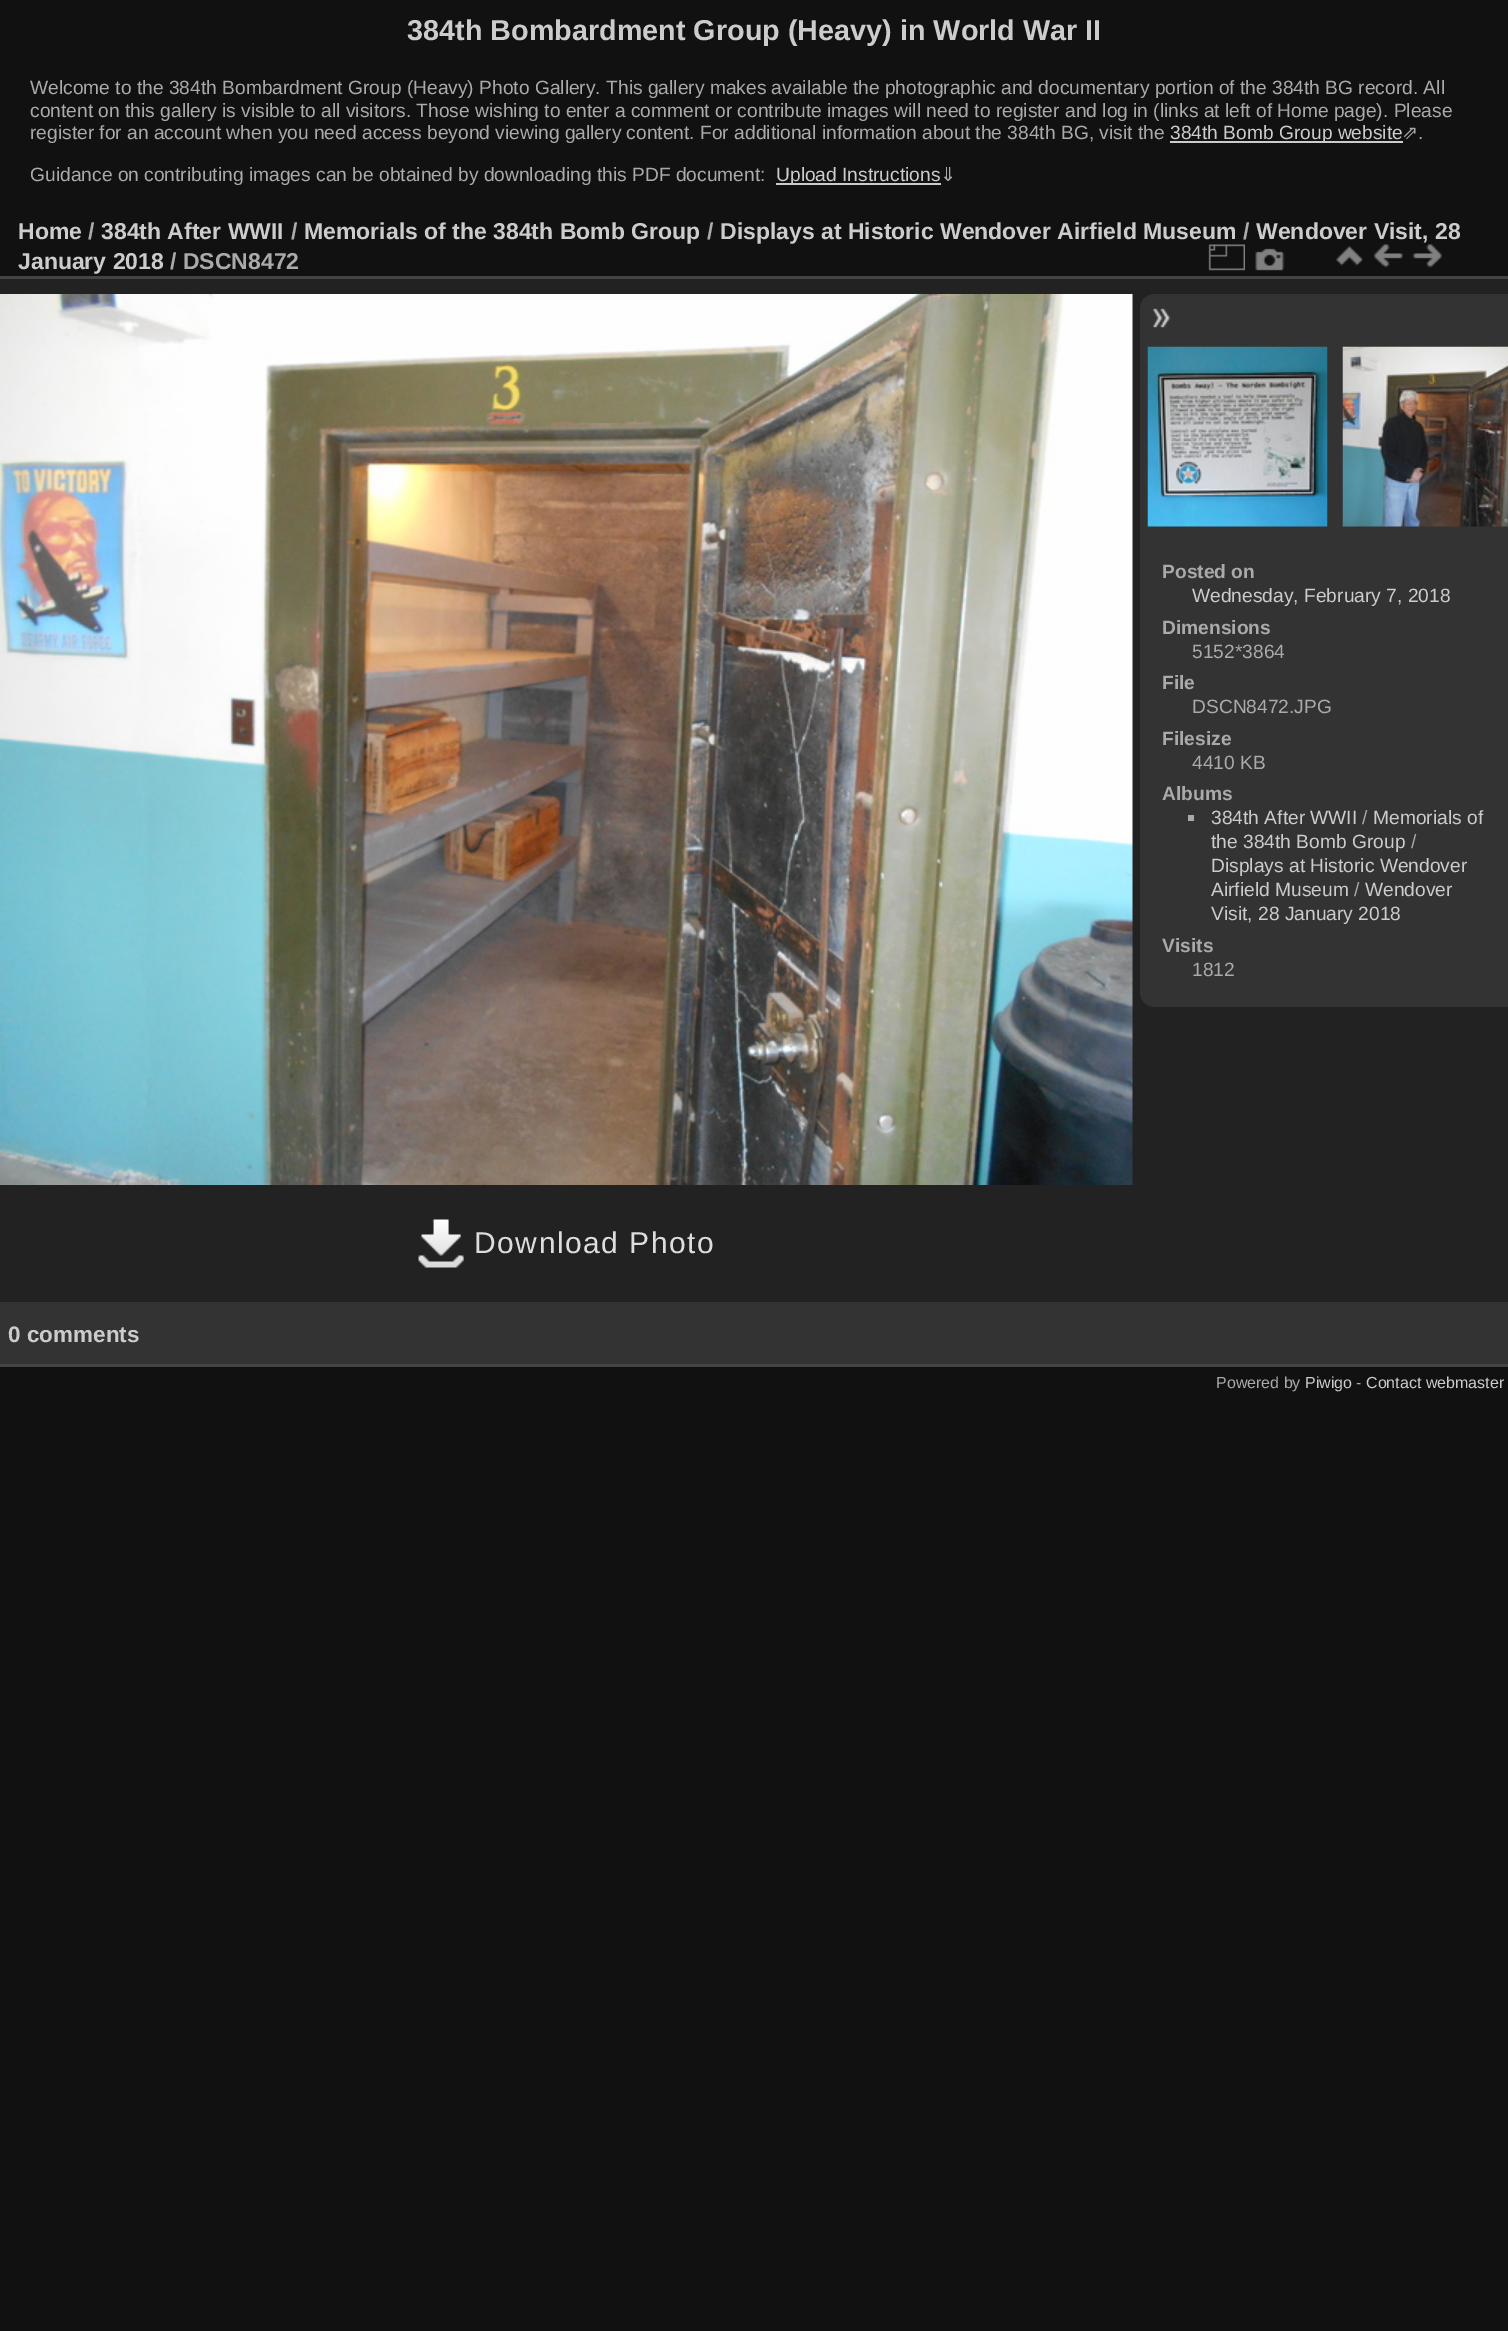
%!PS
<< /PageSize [1508 2331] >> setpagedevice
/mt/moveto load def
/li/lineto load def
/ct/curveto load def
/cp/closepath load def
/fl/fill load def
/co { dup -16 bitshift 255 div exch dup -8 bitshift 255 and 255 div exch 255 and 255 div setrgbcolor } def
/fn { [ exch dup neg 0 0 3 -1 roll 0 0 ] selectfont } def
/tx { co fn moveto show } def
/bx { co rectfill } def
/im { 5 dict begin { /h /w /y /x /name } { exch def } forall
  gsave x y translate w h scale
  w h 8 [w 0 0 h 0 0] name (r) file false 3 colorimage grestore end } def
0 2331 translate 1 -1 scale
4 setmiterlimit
0 0 1508 2331 16#111111 bx
1170 141 233 2 16#CCCCCC bx
776 183 165 2 16#CCCCCC bx
0 279 1508 1023 16#222222 bx
0 1364 1508 3 16#444444 bx
0 276 1508 3 16#444444 bx
(media/1.raw) 1208 244 37 27 im
(media/2.raw) 1255 248 30 23 im
(media/3.raw) 1336 245 27 21 im
(media/4.raw) 1373 244 30 24 im
(media/5.raw) 1412 244 30 24 im
16#333333 co
1155 294 mt 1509 294 li 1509 1007 li 1155 1007 li 1146.5 1007 1140 1000.5 1140 992 ct 1140 309 li 1140 300.5 1146.5 294 1155 294 ct cp fl
(media/6.raw) 1153 308 18 20 im
(media/7.raw) 1147 346 181 181 im
(media/8.raw) 1342 346 166 181 im
1188 815 6 6 16#AAAAAA bx
(media/9.raw) 0 294 1133 891 im
(media/10.raw) 418 1219 46 49 im
0 1302 1508 62 16#333333 bx
(384th Bombardment Group \(Heavy\) in World War II) 407 40 /LiberationSans-Bold 28.8 16#CCCCCC tx
(Welcome to the 384th Bombardment Group \(Heavy\) Photo Gallery. This gallery makes available the photographic and documentary portion of the 384th BG record. All) 30 94 /LiberationSans-Regular 19.2 16#AAAAAA tx
(content on this gallery is visible to all visitors. Those wishing to enter a comment or contribute images will need to register and log in \(links at left of Home page\). Please) 30 117 /LiberationSans-Regular 19.2 16#AAAAAA tx
(register for an account when you need access beyond viewing gallery content. For additional information about the 384th BG, visit the) 30 139 /LiberationSans-Regular 19.2 16#AAAAAA tx
(384th Bomb Group website) 1170 139 /LiberationSans-Regular 19.2 16#CCCCCC tx
(⇗) 1402 139 /DejaVuSans-Regular 19.2 16#AAAAAA tx
(.) 1418 139 /LiberationSans-Regular 19.2 16#AAAAAA tx
(Guidance on contributing images can be obtained by downloading this PDF document:) 30 181 /LiberationSans-Regular 19.2 16#AAAAAA tx
(Upload Instructions) 776 181 /LiberationSans-Regular 19.2 16#CCCCCC tx
(⇓) 940 181 /DejaVuSans-Regular 19.2 16#AAAAAA tx
(Home) 18 239 /LiberationSans-Bold 23 16#CCCCCC tx
(/) 88 239 /LiberationSans-Bold 23 16#AAAAAA tx
(384th After WWII) 101 239 /LiberationSans-Bold 23 16#CCCCCC tx
(/) 291 239 /LiberationSans-Bold 23 16#AAAAAA tx
(Memorials of the 384th Bomb Group) 304 239 /LiberationSans-Bold 23 16#CCCCCC tx
(/) 707 239 /LiberationSans-Bold 23 16#AAAAAA tx
(Displays at Historic Wendover Airfield Museum) 720 239 /LiberationSans-Bold 23 16#CCCCCC tx
(/) 1243 239 /LiberationSans-Bold 23 16#AAAAAA tx
(Wendover Visit, 28) 1256 239 /LiberationSans-Bold 23 16#CCCCCC tx
(January 2018) 18 269 /LiberationSans-Bold 23 16#CCCCCC tx
(/ DSCN8472) 170 269 /LiberationSans-Bold 23 16#AAAAAA tx
(Posted on) 1162 578 /LiberationSans-Bold 19.2 16#AAAAAA tx
(Wednesday, February 7, 2018) 1192 602 /LiberationSans-Regular 19.2 16#CCCCCC tx
(Dimensions) 1162 634 /LiberationSans-Bold 19.2 16#AAAAAA tx
(5152*3864) 1192 658 /LiberationSans-Regular 19.2 16#AAAAAA tx
(File) 1162 689 /LiberationSans-Bold 19.2 16#AAAAAA tx
(DSCN8472.JPG) 1192 713 /LiberationSans-Regular 19.2 16#AAAAAA tx
(Filesize) 1162 745 /LiberationSans-Bold 19.2 16#AAAAAA tx
(4410 KB) 1192 769 /LiberationSans-Regular 19.2 16#AAAAAA tx
(Albums) 1162 800 /LiberationSans-Bold 19.2 16#AAAAAA tx
(384th After WWII) 1211 824 /LiberationSans-Regular 19.2 16#CCCCCC tx
(/) 1362 824 /LiberationSans-Regular 19.2 16#AAAAAA tx
(Memorials of) 1373 824 /LiberationSans-Regular 19.2 16#CCCCCC tx
(the 384th Bomb Group) 1211 848 /LiberationSans-Regular 19.2 16#CCCCCC tx
(/) 1411 848 /LiberationSans-Regular 19.2 16#AAAAAA tx
(Displays at Historic Wendover) 1211 872 /LiberationSans-Regular 19.2 16#CCCCCC tx
(Airfield Museum) 1211 896 /LiberationSans-Regular 19.2 16#CCCCCC tx
(/) 1354 896 /LiberationSans-Regular 19.2 16#AAAAAA tx
(Wendover) 1365 896 /LiberationSans-Regular 19.2 16#CCCCCC tx
(Visit, 28 January 2018) 1211 920 /LiberationSans-Regular 19.2 16#CCCCCC tx
(Visits) 1162 952 /LiberationSans-Bold 19.2 16#AAAAAA tx
(1812) 1192 976 /LiberationSans-Regular 19.2 16#AAAAAA tx
/LiberationSans-Regular 30 fn
16#DDDDDD co
474 1253 mt 1.5 0 (Download Photo) ashow
(0 comments) 8 1342 /LiberationSans-Bold 22.5 16#CCCCCC tx
(Powered by) 1216 1388 /LiberationSans-Regular 16 16#AAAAAA tx
(Piwigo) 1305 1388 /LiberationSans-Regular 16 16#CCCCCC tx
(-) 1356 1388 /LiberationSans-Regular 16 16#AAAAAA tx
(Contact webmaster) 1366 1388 /LiberationSans-Regular 16 16#CCCCCC tx
showpage
